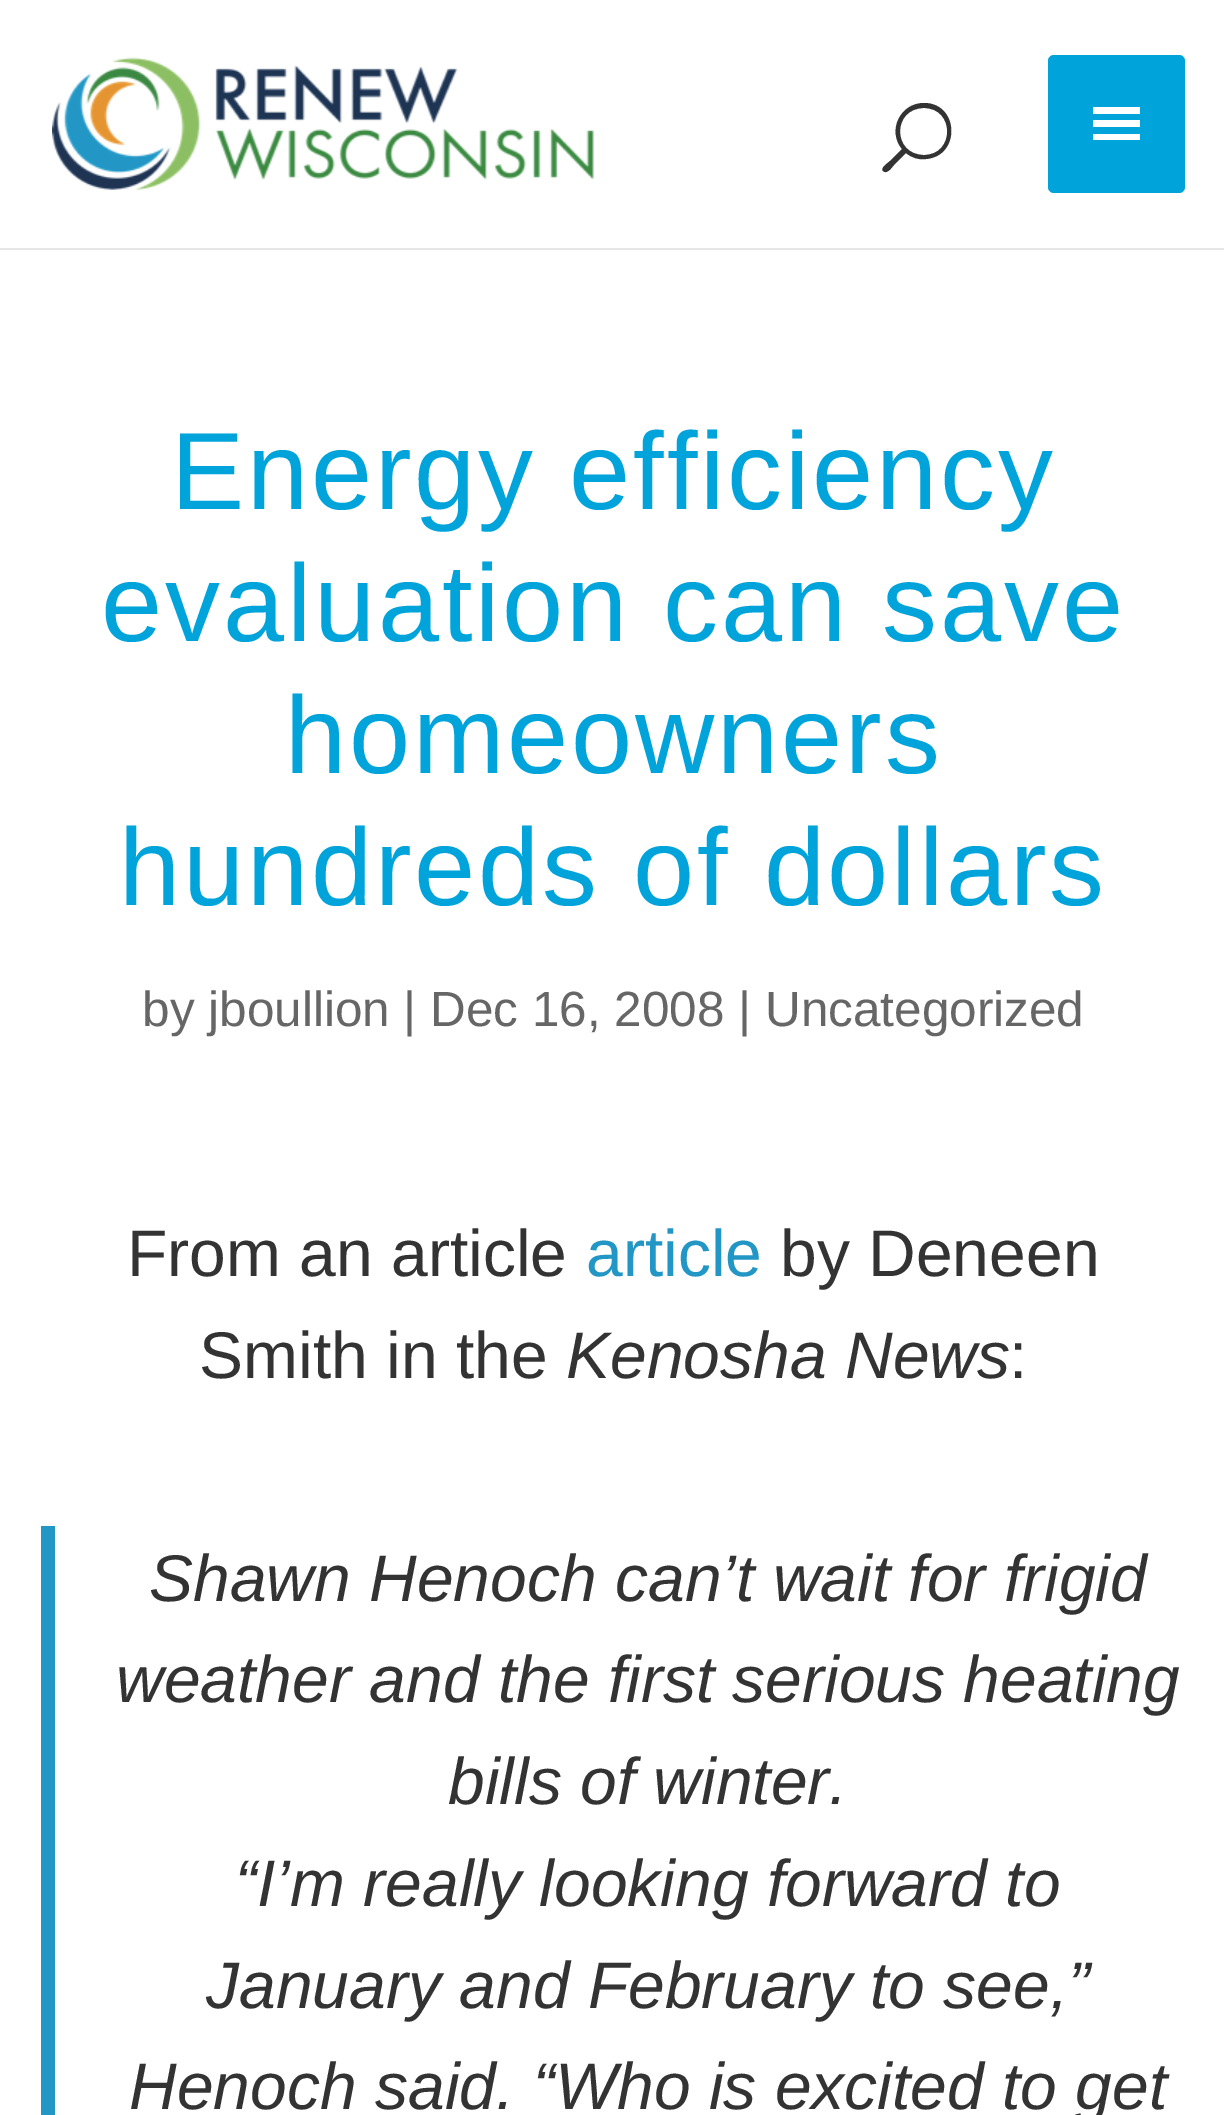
%!PS
<< /PageSize [1224 2115] >> setpagedevice
/mt/moveto load def
/li/lineto load def
/ct/curveto load def
/cp/closepath load def
/fl/fill load def
/co { dup -16 bitshift 255 div exch dup -8 bitshift 255 and 255 div exch 255 and 255 div setrgbcolor } def
/fn { [ exch dup neg 0 0 3 -1 roll 0 0 ] selectfont } def
/tx { co fn moveto show } def
/bx { co rectfill } def
/rr { 5 dict begin { /r /h /w /y /x } { exch def } forall
  x r add y moveto x w add y 2 copy h add r arct x w add y h add x 1 index r arct
  x y h add x y r arct x y 2 copy exch w add exch r arct closepath end } def
/im { 5 dict begin { /h /w /y /x /name } { exch def } forall
  gsave x y translate w h scale
  w h 8 [w 0 0 h 0 0] name (r) file false 3 colorimage grestore end } def
0 2115 translate 1 -1 scale
4 setmiterlimit
0 0 1224 2115 16#FFFFFF bx
16#E6E6E6 co
0 248 mt 0 250 li 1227 250 li 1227 3 li 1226 3 li 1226 248 li cp fl
(media/1.raw) 52 57 542 133 im
16#333333 co
924 103 mt 900 103 887 131 902 149 ct 890 161 li 888 163 880 168 883 171 ct 887 175 892 167 894 165 ct 906 153 li 912 158 919 160 926 159 ct 961 156 959 103 924 103 ct cp 924 155 mt 892 155 892 108 924 108 ct 955 108 955 155 924 155 ct cp fl
16#00A4DB co
1048 55 137 138 6 rr fl
16#FFFFFF co
1093 140 mt 1140 140 li 1140 134 li 1093 134 li cp 1093 107 mt 1093 114 li 1140 114 li 1140 107 li cp 1093 127 mt 1140 127 li 1140 120 li 1093 120 li cp fl
41 1526 14 589 16#2296C4 bx
/LiberationSans-Regular 110 fn
16#00A4DB co
171 509 mt 2.75 0 (Energy efficiency) ashow
101 641 mt 2.75 0 (evaluation can save) ashow
285 773 mt 2.75 0 (homeowners) ashow
119 905 mt 2.75 0 (hundreds of dollars) ashow
(by jboullion | Dec 16, 2008 | Uncategorized) 142 1026 /LiberationSans-Regular 49.5 16#666666 tx
(From an article) 127 1276 /LiberationSans-Regular 66 16#333333 tx
(article) 586 1276 /LiberationSans-Regular 66 16#2296C4 tx
(by Deneen) 780 1276 /LiberationSans-Regular 66 16#333333 tx
(Smith in the) 199 1378 /LiberationSans-Regular 66 16#333333 tx
(Kenosha News) 566 1378 /LiberationSans-Italic 66 16#333333 tx
(:) 1009 1378 /LiberationSans-Regular 66 16#333333 tx
(Shawn Henoch can’t wait for frigid) 149 1601 /LiberationSans-Italic 66 16#333333 tx
(weather and the first serious heating) 116 1702 /LiberationSans-Italic 66 16#333333 tx
(bills of winter.) 448 1804 /LiberationSans-Italic 66 16#333333 tx
(“I’m really looking forward to) 235 1906 /LiberationSans-Italic 66 16#333333 tx
(January and February to see,”) 206 2008 /LiberationSans-Italic 66 16#333333 tx
(Henoch said. “Who is excited to get) 129 2109 /LiberationSans-Italic 66 16#333333 tx
showpage
